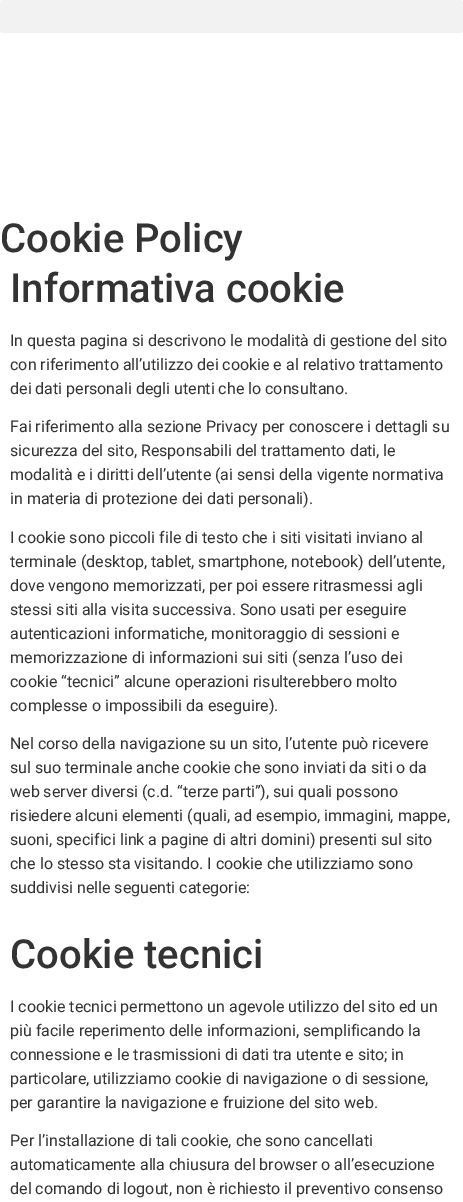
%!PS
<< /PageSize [463 1202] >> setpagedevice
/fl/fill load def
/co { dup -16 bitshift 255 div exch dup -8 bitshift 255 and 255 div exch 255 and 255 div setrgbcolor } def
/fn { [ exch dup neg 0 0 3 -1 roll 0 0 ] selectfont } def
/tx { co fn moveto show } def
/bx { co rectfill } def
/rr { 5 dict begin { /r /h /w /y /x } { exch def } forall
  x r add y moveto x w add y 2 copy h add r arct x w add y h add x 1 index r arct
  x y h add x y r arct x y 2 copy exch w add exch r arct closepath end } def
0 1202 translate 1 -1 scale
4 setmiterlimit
0 0 463 1202 16#FFFFFF bx
16#F2F2F2 co
0 0 463 33 3 rr fl
(Cookie Policy) 0 252 /Roboto-Medium 40 16#333333 tx
(Informativa cookie) 10 302 /Roboto-Medium 40 16#333333 tx
(In questa pagina si descrivono le modalità di gestione del sito) 10 346 /Roboto-Regular 16 16#333333 tx
(con riferimento all’utilizzo dei cookie e al relativo trattamento) 10 370 /Roboto-Regular 16 16#333333 tx
(dei dati personali degli utenti che lo consultano.) 10 394 /Roboto-Regular 16 16#333333 tx
(Fai riferimento alla sezione Privacy per conoscere i dettagli su) 10 432 /Roboto-Regular 16 16#333333 tx
(sicurezza del sito, Responsabili del trattamento dati, le) 10 456 /Roboto-Regular 16 16#333333 tx
(modalità e i diritti dell’utente \(ai sensi della vigente normativa) 10 480 /Roboto-Regular 16 16#333333 tx
(in materia di protezione dei dati personali\).) 10 504 /Roboto-Regular 16 16#333333 tx
(I cookie sono piccoli file di testo che i siti visitati inviano al) 10 543 /Roboto-Regular 16 16#333333 tx
(terminale \(desktop, tablet, smartphone, notebook\) dell’utente,) 10 567 /Roboto-Regular 16 16#333333 tx
(dove vengono memorizzati, per poi essere ritrasmessi agli) 10 591 /Roboto-Regular 16 16#333333 tx
(stessi siti alla visita successiva. Sono usati per eseguire) 10 615 /Roboto-Regular 16 16#333333 tx
(autenticazioni informatiche, monitoraggio di sessioni e) 10 639 /Roboto-Regular 16 16#333333 tx
(memorizzazione di informazioni sui siti \(senza l’uso dei) 10 663 /Roboto-Regular 16 16#333333 tx
(cookie “tecnici” alcune operazioni risulterebbero molto) 10 687 /Roboto-Regular 16 16#333333 tx
(complesse o impossibili da eseguire\).) 10 711 /Roboto-Regular 16 16#333333 tx
(Nel corso della navigazione su un sito, l’utente può ricevere) 10 749 /Roboto-Regular 16 16#333333 tx
(sul suo terminale anche cookie che sono inviati da siti o da) 10 773 /Roboto-Regular 16 16#333333 tx
(web server diversi \(c.d. “terze parti”\), sui quali possono) 10 797 /Roboto-Regular 16 16#333333 tx
(risiedere alcuni elementi \(quali, ad esempio, immagini, mappe,) 10 821 /Roboto-Regular 16 16#333333 tx
(suoni, specifici link a pagine di altri domini\) presenti sul sito) 10 845 /Roboto-Regular 16 16#333333 tx
(che lo stesso sta visitando. I cookie che utilizziamo sono) 10 869 /Roboto-Regular 16 16#333333 tx
(suddivisi nelle seguenti categorie:) 10 893 /Roboto-Regular 16 16#333333 tx
(Cookie tecnici) 10 968 /Roboto-Medium 40 16#333333 tx
(I cookie tecnici permettono un agevole utilizzo del sito ed un) 10 1012 /Roboto-Regular 16 16#333333 tx
(più facile reperimento delle informazioni, semplificando la) 10 1036 /Roboto-Regular 16 16#333333 tx
(connessione e le trasmissioni di dati tra utente e sito; in) 10 1060 /Roboto-Regular 16 16#333333 tx
(particolare, utilizziamo cookie di navigazione o di sessione,) 10 1084 /Roboto-Regular 16 16#333333 tx
(per garantire la navigazione e fruizione del sito web.) 10 1108 /Roboto-Regular 16 16#333333 tx
(Per l’installazione di tali cookie, che sono cancellati) 10 1146 /Roboto-Regular 16 16#333333 tx
(automaticamente alla chiusura del browser o all’esecuzione) 10 1170 /Roboto-Regular 16 16#333333 tx
(del comando di logout, non è richiesto il preventivo consenso) 10 1194 /Roboto-Regular 16 16#333333 tx
showpage
